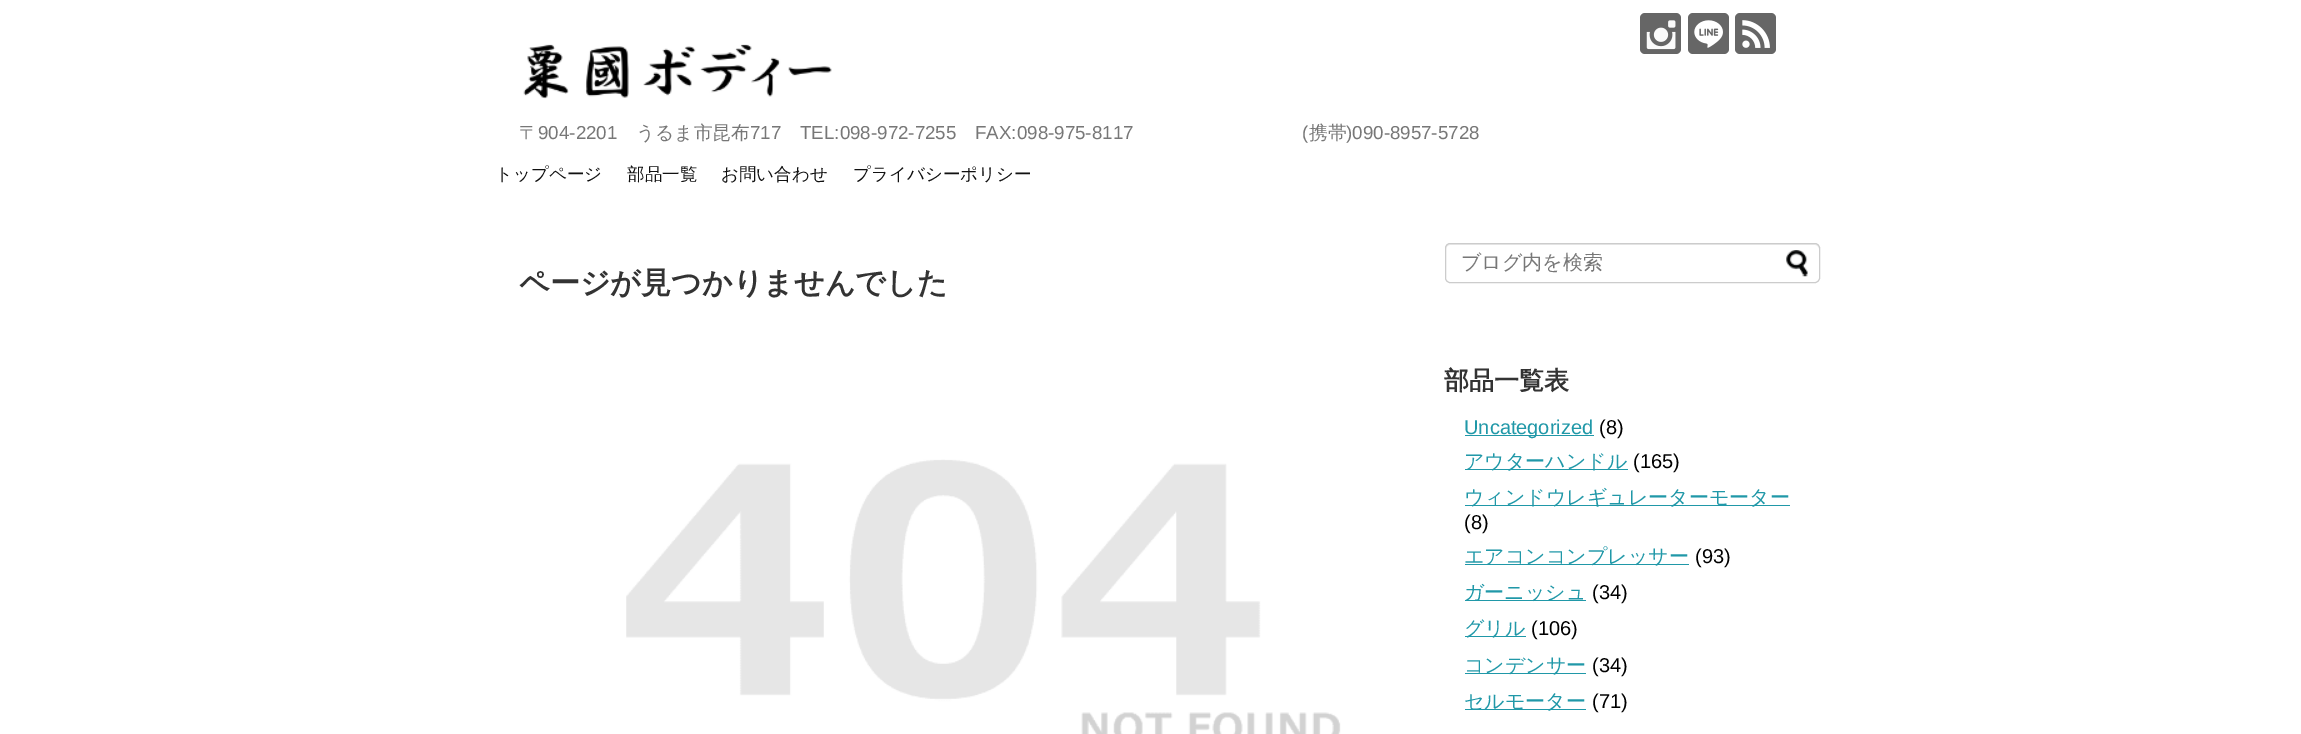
%!PS
<< /PageSize [2301 734] >> setpagedevice
/mt/moveto load def
/li/lineto load def
/ct/curveto load def
/cp/closepath load def
/fl/fill load def
/st/stroke load def
/co { dup -16 bitshift 255 div exch dup -8 bitshift 255 and 255 div exch 255 and 255 div setrgbcolor } def
/fn { [ exch dup neg 0 0 3 -1 roll 0 0 ] selectfont } def
/tx { co fn moveto show } def
/bx { co rectfill } def
/rr { 5 dict begin { /r /h /w /y /x } { exch def } forall
  x r add y moveto x w add y 2 copy h add r arct x w add y h add x 1 index r arct
  x y h add x y r arct x y 2 copy exch w add exch r arct closepath end } def
/im { 5 dict begin { /h /w /y /x /name } { exch def } forall
  gsave x y translate w h scale
  w h 8 [w 0 0 h 0 0] name (r) file false 3 colorimage grestore end } def
0 734 translate 1 -1 scale
4 setmiterlimit
0 0 2301 734 16#FFFFFF bx
16#666666 co
1640 13 41 41 5 rr fl
(media/1.raw) 1646 20 30 30 im
1688 13 41 41 5 rr fl
(media/2.raw) 1694 20 29 28 im
1735 13 41 41 5 rr fl
(media/3.raw) 1742 20 28 28 im
(media/4.raw) 523 44 309 55 im
(media/5.raw) 626 459 715 275 im
16#ECECEC co
1450 245 mt 1815 245 li 1817 245 1819 247 1819 249 ct 1819 246 1818 244 1815 244 ct 1450 244 li 1447 244 1446 246 1446 249 ct 1446 247 1448 245 1450 245 ct cp fl
16#CCCCCC co
1445.5 243.5 374 39 4.5 rr st
(media/6.raw) 1786 250 22 27 im
1465 435 129 1 16#2098A8 bx
1465 469 163 1 16#2098A8 bx
1465 505 325 1 16#2098A8 bx
1465 564 224 1 16#2098A8 bx
1465 600 121 1 16#2098A8 bx
1465 636 61 1 16#2098A8 bx
1465 673 121 1 16#2098A8 bx
1465 709 121 1 16#2098A8 bx
(〒) 519 139 /WenQuanYiZenHei-Medium 18.75 16#777777 tx
(904-2201) 538 139 /LiberationSans-Regular 18.75 16#777777 tx
(うるま市昆布) 636 139 /WenQuanYiZenHei-Medium 18.75 16#777777 tx
(717) 750 139 /LiberationSans-Regular 18.75 16#777777 tx
(TEL:098-972-7255) 800 139 /LiberationSans-Regular 18.75 16#777777 tx
(FAX:098-975-8117) 975 139 /LiberationSans-Regular 18.75 16#777777 tx
(\() 1302 139 /LiberationSans-Regular 18.75 16#777777 tx
(携帯) 1309 139 /WenQuanYiZenHei-Medium 18.75 16#777777 tx
(\)090-8957-5728) 1346 139 /LiberationSans-Regular 18.75 16#777777 tx
(トップページ) 495 180 /WenQuanYiZenHei-Medium 17.5 16#111111 tx
(部品一覧) 627 180 /WenQuanYiZenHei-Medium 17.5 16#111111 tx
(お問い合わせ) 721 180 /WenQuanYiZenHei-Medium 17.5 16#111111 tx
(プライバシーポリシー) 853 180 /WenQuanYiZenHei-Medium 17.5 16#111111 tx
(ページが見つかりませんでした) 519 293 /WenQuanYiZenHei-Bold 30 16#333333 tx
(ブログ内を検索) 1461 269 /WenQuanYiZenHei-Medium 20 16#777777 tx
(部品一覧表) 1444 389 /WenQuanYiZenHei-Bold 25 16#333333 tx
(Uncategorized) 1464 434 /LiberationSans-Regular 20 16#2098A8 tx
(\(8\)) 1599 434 /LiberationSans-Regular 20 16#000000 tx
(アウターハンドル) 1464 468 /WenQuanYiZenHei-Medium 20 16#2098A8 tx
(\(165\)) 1633 468 /LiberationSans-Regular 20 16#000000 tx
(ウィンドウレギュレーターモーター) 1464 504 /WenQuanYiZenHei-Medium 20 16#2098A8 tx
(\(8\)) 1464 529 /LiberationSans-Regular 20 16#000000 tx
(エアコンコンプレッサー) 1464 563 /WenQuanYiZenHei-Medium 20 16#2098A8 tx
(\(93\)) 1695 563 /LiberationSans-Regular 20 16#000000 tx
(ガーニッシュ) 1464 599 /WenQuanYiZenHei-Medium 20 16#2098A8 tx
(\(34\)) 1592 599 /LiberationSans-Regular 20 16#000000 tx
(グリル) 1464 635 /WenQuanYiZenHei-Medium 20 16#2098A8 tx
(\(106\)) 1531 635 /LiberationSans-Regular 20 16#000000 tx
(コンデンサー) 1464 672 /WenQuanYiZenHei-Medium 20 16#2098A8 tx
(\(34\)) 1592 672 /LiberationSans-Regular 20 16#000000 tx
(セルモーター) 1464 708 /WenQuanYiZenHei-Medium 20 16#2098A8 tx
(\(71\)) 1592 708 /LiberationSans-Regular 20 16#000000 tx
showpage
